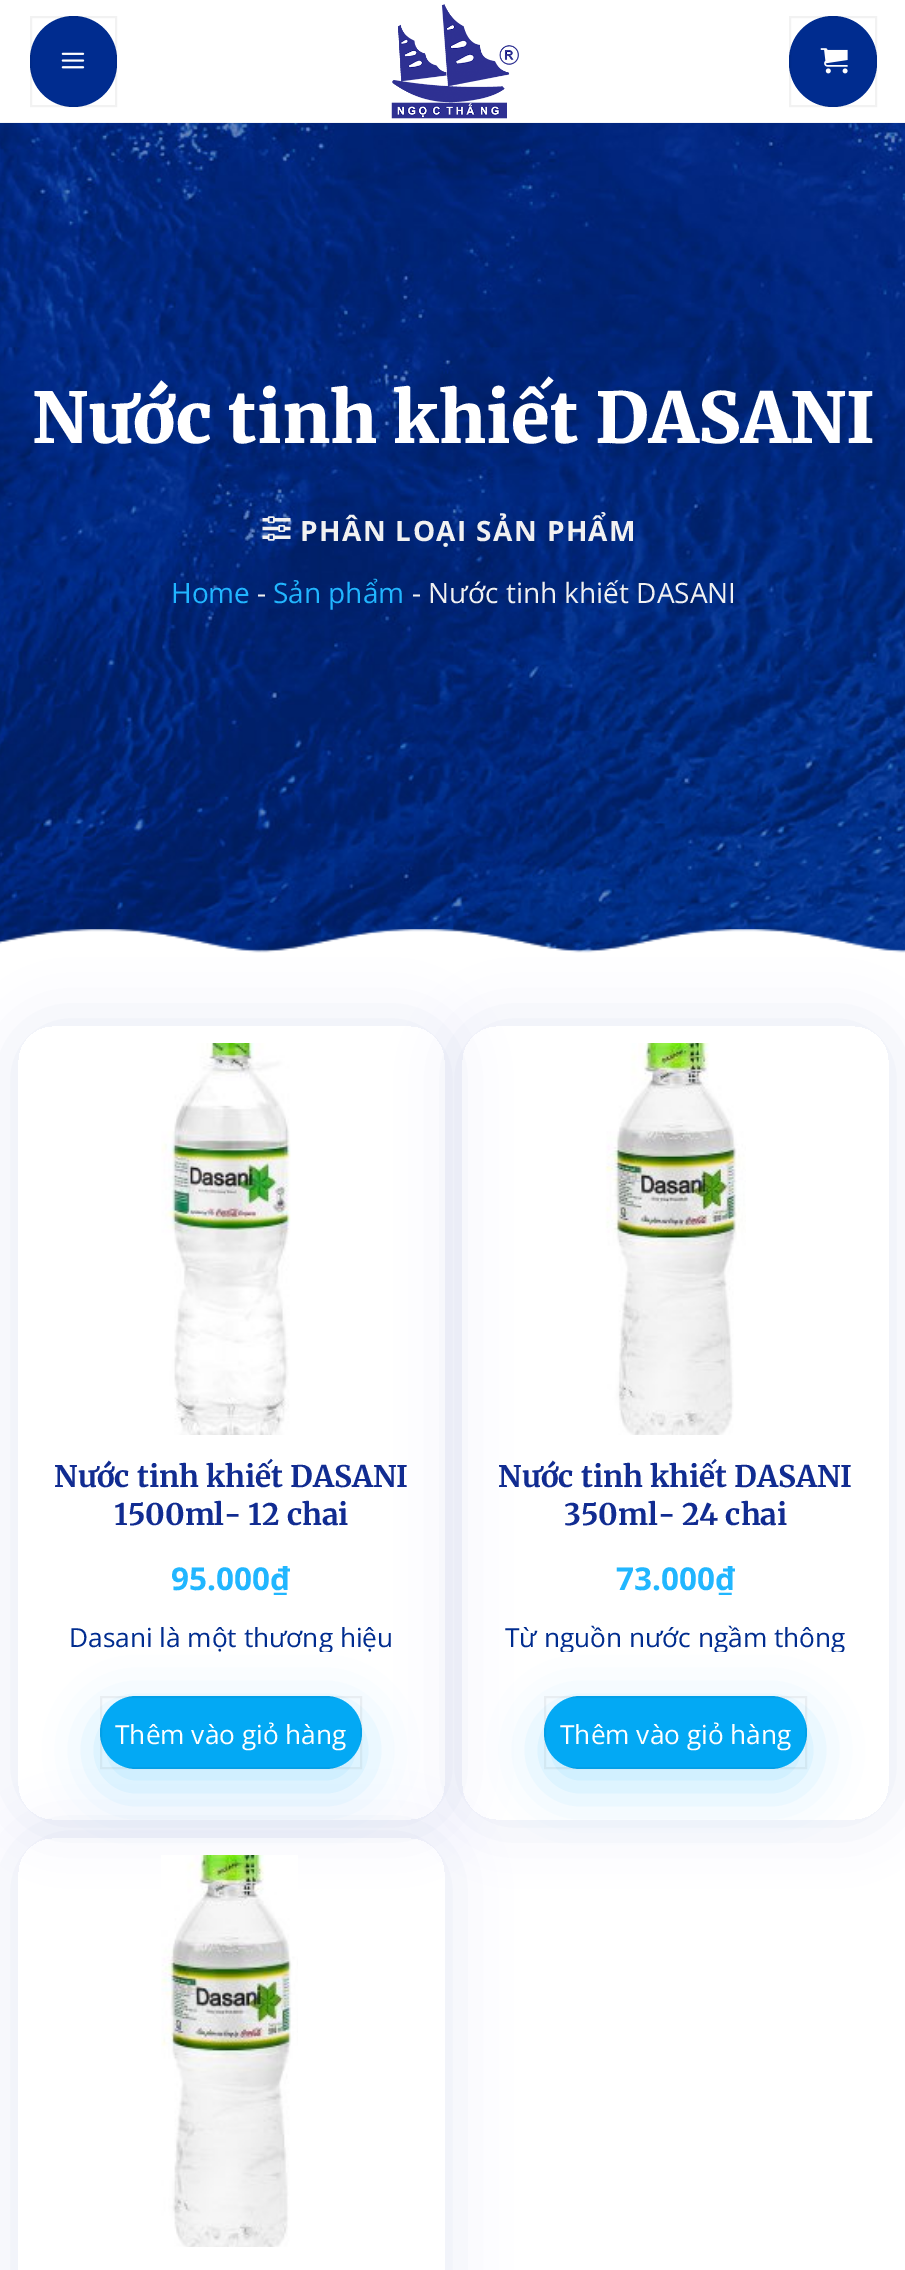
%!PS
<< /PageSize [905 2270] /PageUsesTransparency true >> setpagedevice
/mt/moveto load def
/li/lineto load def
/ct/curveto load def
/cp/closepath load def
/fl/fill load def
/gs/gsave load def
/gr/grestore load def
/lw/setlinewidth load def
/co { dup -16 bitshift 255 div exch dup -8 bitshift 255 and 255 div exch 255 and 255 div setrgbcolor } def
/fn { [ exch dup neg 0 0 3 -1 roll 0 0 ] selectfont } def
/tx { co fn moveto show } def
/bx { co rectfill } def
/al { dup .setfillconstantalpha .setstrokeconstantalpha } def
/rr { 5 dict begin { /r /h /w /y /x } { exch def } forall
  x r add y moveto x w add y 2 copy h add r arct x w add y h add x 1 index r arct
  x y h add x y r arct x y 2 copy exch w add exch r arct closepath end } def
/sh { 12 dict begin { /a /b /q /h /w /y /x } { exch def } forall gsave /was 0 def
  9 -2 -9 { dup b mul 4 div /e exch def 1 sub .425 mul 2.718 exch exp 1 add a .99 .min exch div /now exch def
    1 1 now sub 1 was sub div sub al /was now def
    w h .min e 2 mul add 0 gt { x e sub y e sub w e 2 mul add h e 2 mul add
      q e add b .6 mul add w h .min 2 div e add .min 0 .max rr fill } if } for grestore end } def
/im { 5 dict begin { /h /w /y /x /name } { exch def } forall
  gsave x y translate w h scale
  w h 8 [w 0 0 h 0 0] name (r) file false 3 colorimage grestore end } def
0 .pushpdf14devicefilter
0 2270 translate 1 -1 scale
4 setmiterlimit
0 0 905 2270 16#FFFFFF bx
16#002C8F co
30 16 87 91 43.5 rr fl
0.05 al
16#000000 co
2 lw
31 17 85 89 rectstroke
1 al
(media/1.raw) 61 52 24 17 im
(media/2.raw) 391 4 128 115 im
16#002C8F co
789 16 88 91 44 rr fl
0.05 al
16#000000 co
790 17 86 89 rectstroke
1 al
(media/3.raw) 820 48 28 26 im
(media/4.raw) 0 122 905 831 im
0.9 al
0 122 905 1 16#FFFFFF bx
1 al
(media/5.raw) 262 516 29 25 im
gs
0 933 mt 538 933 li 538 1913 li 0 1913 li cp 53 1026 mt 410 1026 li 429.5 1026 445 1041.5 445 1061 ct 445 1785 li 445 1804.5 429.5 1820 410 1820 ct 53 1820 li 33.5 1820 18 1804.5 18 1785 ct 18 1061 li 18 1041.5 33.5 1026 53 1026 ct cp eoclip newpath
16#112C91 co
18 1026 427 794 35 30.5 .1 sh
gr
gs
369 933 mt 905 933 li 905 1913 li 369 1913 li cp 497 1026 mt 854 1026 li 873.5 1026 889 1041.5 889 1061 ct 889 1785 li 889 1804.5 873.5 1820 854 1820 ct 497 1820 li 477.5 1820 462 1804.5 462 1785 ct 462 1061 li 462 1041.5 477.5 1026 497 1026 ct cp eoclip newpath
16#112C91 co
462 1026 427 794 35 30.5 .1 sh
gr
(media/6.raw) 0 929 905 27 im
(media/7.raw) 161 1043 130 392 im
16#21B6FF co
100 1713 262 74 37 26 .3 sh
16#03A9F4 co
100 1696 262 73 36.5 rr fl
0.05 al
16#000000 co
101 1697 260 71 rectstroke
1 al
(media/8.raw) 605 1043 141 392 im
16#21B6FF co
544 1713 263 74 37 26 .3 sh
16#03A9F4 co
544 1696 263 73 36.5 rr fl
0.05 al
16#000000 co
545 1697 261 71 rectstroke
gs
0 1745 mt 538 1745 li 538 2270 li 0 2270 li cp 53 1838 mt 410 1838 li 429.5 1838 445 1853.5 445 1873 ct 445 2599 li 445 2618.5 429.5 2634 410 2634 ct 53 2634 li 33.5 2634 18 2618.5 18 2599 ct 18 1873 li 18 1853.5 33.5 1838 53 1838 ct cp eoclip newpath
1 al
16#112C91 co
18 1838 427 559 35 30.5 .1 sh
gr
1 al
(media/9.raw) 161 1855 137 392 im
(Nước tinh khiết DASANI) 32 443 /Merriweather-Black 70 16#FFFFFF tx
/OpenSans-Bold 28 fn
16#F1F1F1 co
300 541 mt 1.4 0 (PHÂN LOẠI SẢN PHẨM) ashow
(Home) 171 603 /OpenSans-Regular 28 16#21B6FF tx
(-) 257 603 /OpenSans-Regular 28 16#F1F1F1 tx
(Sản phẩm) 273 603 /OpenSans-Regular 28 16#21B6FF tx
(- Nước tinh khiết DASANI) 412 603 /OpenSans-Regular 28 16#F1F1F1 tx
(Nước tinh khiết DASANI) 54 1487 /Merriweather-Bold 29.75 16#112C91 tx
(1500ml- 12 chai) 114 1525 /Merriweather-Bold 29.75 16#112C91 tx
(95.000₫) 171 1590 /OpenSans-Bold 31.5 16#21B6FF tx
gs
35 1615 392 37 rectclip
(Dasani là một thương hiệu) 69 1647 /OpenSans-Regular 26.25 16#002C8F tx
gr
(Thêm vào giỏ hàng) 115 1744 /OpenSans-Regular 26.25 16#FFFFFF tx
(Nước tinh khiết DASANI) 498 1487 /Merriweather-Bold 29.75 16#112C91 tx
(350ml- 24 chai) 564 1525 /Merriweather-Bold 29.75 16#112C91 tx
(73.000₫) 616 1590 /OpenSans-Bold 31.5 16#21B6FF tx
gs
480 1615 392 37 rectclip
(Từ nguồn nước ngầm thông) 505 1647 /OpenSans-Regular 26.25 16#002C8F tx
gr
(Thêm vào giỏ hàng) 560 1744 /OpenSans-Regular 26.25 16#FFFFFF tx
.poppdf14devicefilter showpage
